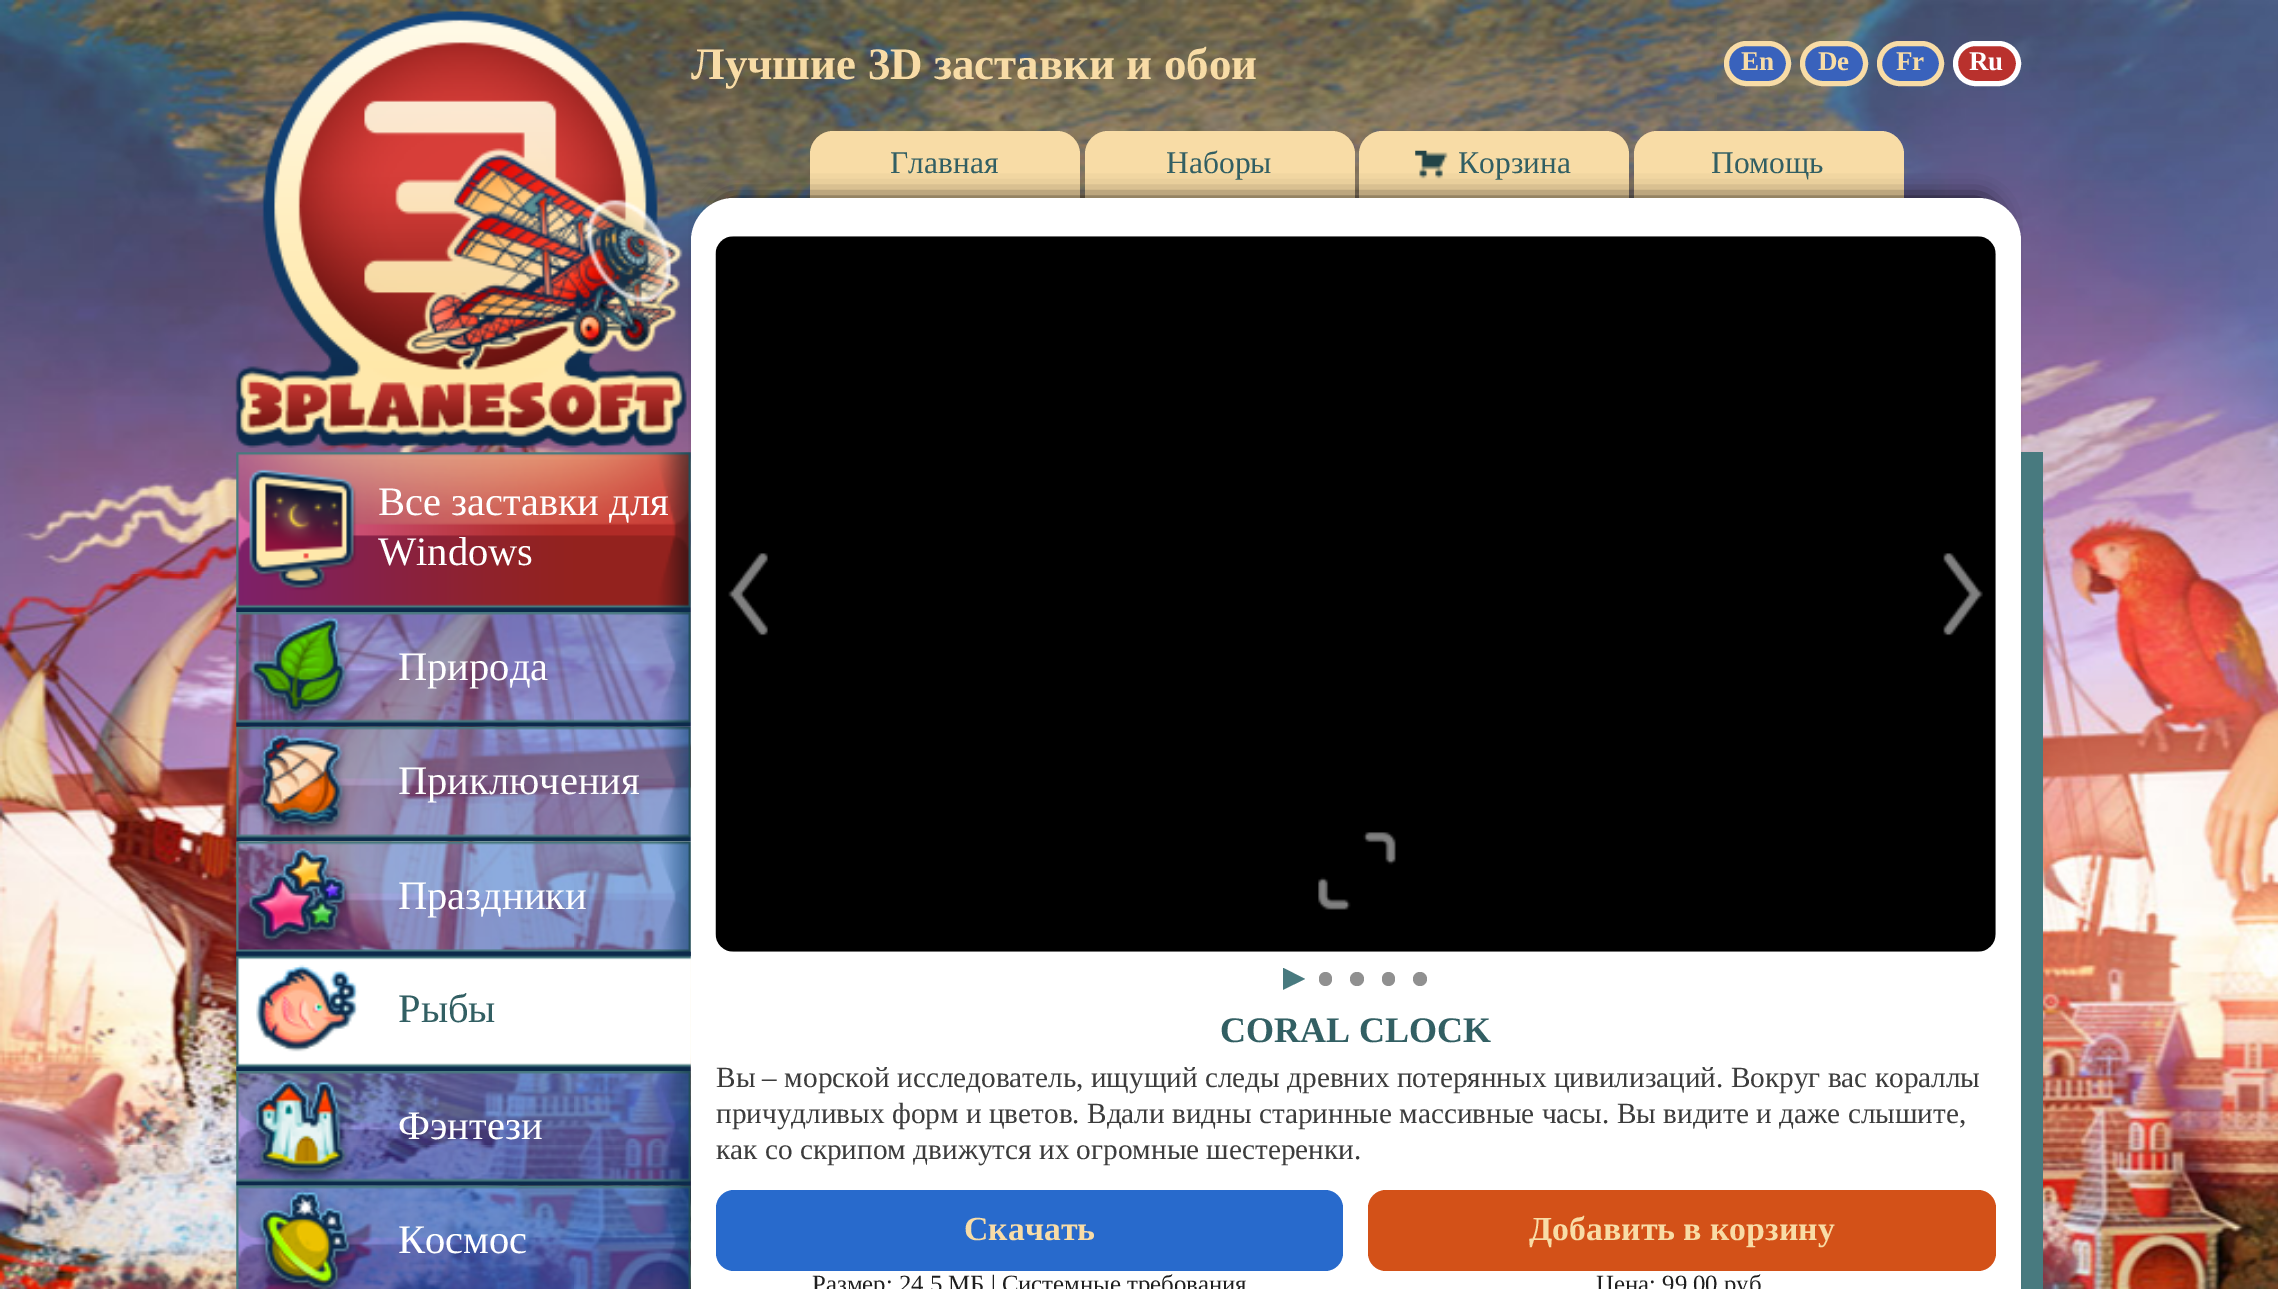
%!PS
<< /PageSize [2278 1289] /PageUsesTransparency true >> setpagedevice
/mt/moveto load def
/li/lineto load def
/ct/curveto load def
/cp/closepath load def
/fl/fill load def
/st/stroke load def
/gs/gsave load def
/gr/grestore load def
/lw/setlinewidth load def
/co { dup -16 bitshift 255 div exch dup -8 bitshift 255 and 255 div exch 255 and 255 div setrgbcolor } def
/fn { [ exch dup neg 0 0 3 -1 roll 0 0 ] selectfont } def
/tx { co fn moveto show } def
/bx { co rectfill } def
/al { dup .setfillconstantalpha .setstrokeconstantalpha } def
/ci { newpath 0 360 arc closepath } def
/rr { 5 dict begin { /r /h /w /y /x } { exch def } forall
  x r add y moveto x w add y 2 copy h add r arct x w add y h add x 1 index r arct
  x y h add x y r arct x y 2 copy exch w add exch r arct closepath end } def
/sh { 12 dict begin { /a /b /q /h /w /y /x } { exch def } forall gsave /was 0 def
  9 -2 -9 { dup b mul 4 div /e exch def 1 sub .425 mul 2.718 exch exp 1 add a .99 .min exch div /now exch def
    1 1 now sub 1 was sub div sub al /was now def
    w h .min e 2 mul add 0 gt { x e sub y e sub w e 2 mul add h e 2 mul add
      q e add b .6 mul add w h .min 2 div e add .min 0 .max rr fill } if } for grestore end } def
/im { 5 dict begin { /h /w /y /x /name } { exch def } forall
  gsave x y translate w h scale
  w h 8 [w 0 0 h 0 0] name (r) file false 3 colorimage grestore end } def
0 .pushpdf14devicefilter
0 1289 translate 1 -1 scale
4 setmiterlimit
0 0 2278 1289 16#FFFFFF bx
(media/1.raw) 0 0 2278 1289 im
(media/2.raw) 235 10 452 438 im
16#F8DCA6 co
833 131 mt 1057 131 li 1069.5 131 1080 141.5 1080 154 ct 1080 198 li 810 198 li 810 154 li 810 141.5 820.5 131 833 131 ct cp fl
1108 131 mt 1332 131 li 1344.5 131 1355 141.5 1355 154 ct 1355 198 li 1085 198 li 1085 154 li 1085 141.5 1095.5 131 1108 131 ct cp fl
1382 131 mt 1606 131 li 1618.5 131 1629 141.5 1629 154 ct 1629 198 li 1359 198 li 1359 154 li 1359 141.5 1369.5 131 1382 131 ct cp fl
(media/10.raw) 1415 150 33 29 im
1657 131 mt 1881 131 li 1893.5 131 1904 141.5 1904 154 ct 1904 198 li 1634 198 li 1634 154 li 1634 141.5 1644.5 131 1657 131 ct cp fl
2021 452 22 837 16#487A7F bx
16#000000 co
713 198 1285 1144 20 11 .8 sh
(media/3.raw) 236 452 455 160 im
(media/4.raw) 236 612 455 115 im
(media/5.raw) 236 727 455 115 im
(media/6.raw) 236 841 455 116 im
(media/7.raw) 236 951 455 120 im
(media/8.raw) 236 1071 455 115 im
(media/9.raw) 236 1185 455 104 im
16#3962BC co
1726.5 43.5 62 40 20 rr gs fl gr
16#F8DCA6 co
5 lw
st
16#3962BC co
1802.5 43.5 63 40 20 rr gs fl gr
16#F8DCA6 co
st
16#3962BC co
1879.5 43.5 62 40 20 rr gs fl gr
16#F8DCA6 co
st
16#B9312D co
1955.5 43.5 63 40 20 rr gs fl gr
16#FFFFFF co
st
691 198 1330 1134 43 rr fl
(media/11.raw) 715 236 1281 716 im
(media/12.raw) 728 553 40 83 im
(media/13.raw) 1943 553 40 83 im
(media/14.raw) 1318 832 78 78 im
gs
1283 968 22 22 rectclip
16#487A7F co
1282.5 990 mt 1282.5 967.5 li 1305 979 li cp fl
gr
16#909090 co
1319 972 13 14 6.5 rr fl
1357 979 7 ci fl
1382 972 13 14 6.5 rr fl
1420 979 7 ci fl
16#286ACC co
716 1190 627 81 18 rr fl
16#D35118 co
1368 1190 628 81 18 rr fl
(Все заставки для) 378 515 /LiberationSerif-Regular 40.5 16#FFFFFF tx
(Windows) 378 565 /LiberationSerif-Regular 40.5 16#FFFFFF tx
(Природа) 398 680 /LiberationSerif-Regular 40.5 16#FFFFFF tx
(Приключения) 398 794 /LiberationSerif-Regular 40.5 16#FFFFFF tx
(Праздники) 398 909 /LiberationSerif-Regular 40.5 16#FFFFFF tx
(Рыбы) 398 1022 /LiberationSerif-Regular 40.5 16#325F63 tx
(Фэнтези) 398 1139 /LiberationSerif-Regular 40.5 16#FFFFFF tx
(Космос) 398 1253 /LiberationSerif-Regular 40.5 16#FFFFFF tx
(Лучшие 3D заставки и обои) 691 79 /LiberationSerif-Bold 45 16#F8DCA6 tx
(En) 1741 70 /LiberationSerif-Bold 27 16#F8DCA6 tx
(De) 1818 70 /LiberationSerif-Bold 27 16#F8DCA6 tx
(Fr) 1896 70 /LiberationSerif-Bold 27 16#F8DCA6 tx
(Ru) 1969 70 /LiberationSerif-Bold 27 16#FFFFFF tx
(Главная) 890 173 /LiberationSerif-Regular 31.5 16#325F63 tx
(Наборы) 1166 173 /LiberationSerif-Regular 31.5 16#325F63 tx
(Корзина) 1458 173 /LiberationSerif-Regular 31.5 16#325F63 tx
(Помощь) 1711 173 /LiberationSerif-Regular 31.5 16#325F63 tx
(CORAL CLOCK) 1220 1042 /LiberationSerif-Bold 36 16#325F63 tx
(Вы – морской исследователь, ищущий следы древних потерянных цивилизаций. Вокруг вас кораллы) 716 1087 /LiberationSerif-Regular 29.25 16#3C3C3C tx
(причудливых форм и цветов. Вдали видны старинные массивные часы. Вы видите и даже слышите,) 716 1123 /LiberationSerif-Regular 29.25 16#3C3C3C tx
(как со скрипом движутся их огромные шестеренки.) 716 1159 /LiberationSerif-Regular 29.25 16#3C3C3C tx
(Скачать) 964 1240 /LiberationSerif-Bold 33.75 16#F8DCA6 tx
(Размер: 24,5 МБ | Системные требования) 812 1292 /LiberationSerif-Regular 24.75 16#1F1F1F tx
(Добавить в корзину) 1529 1240 /LiberationSerif-Bold 33.75 16#F8DCA6 tx
(Цена: 99,00 руб) 1596 1292 /LiberationSerif-Regular 24.75 16#1F1F1F tx
.poppdf14devicefilter showpage
